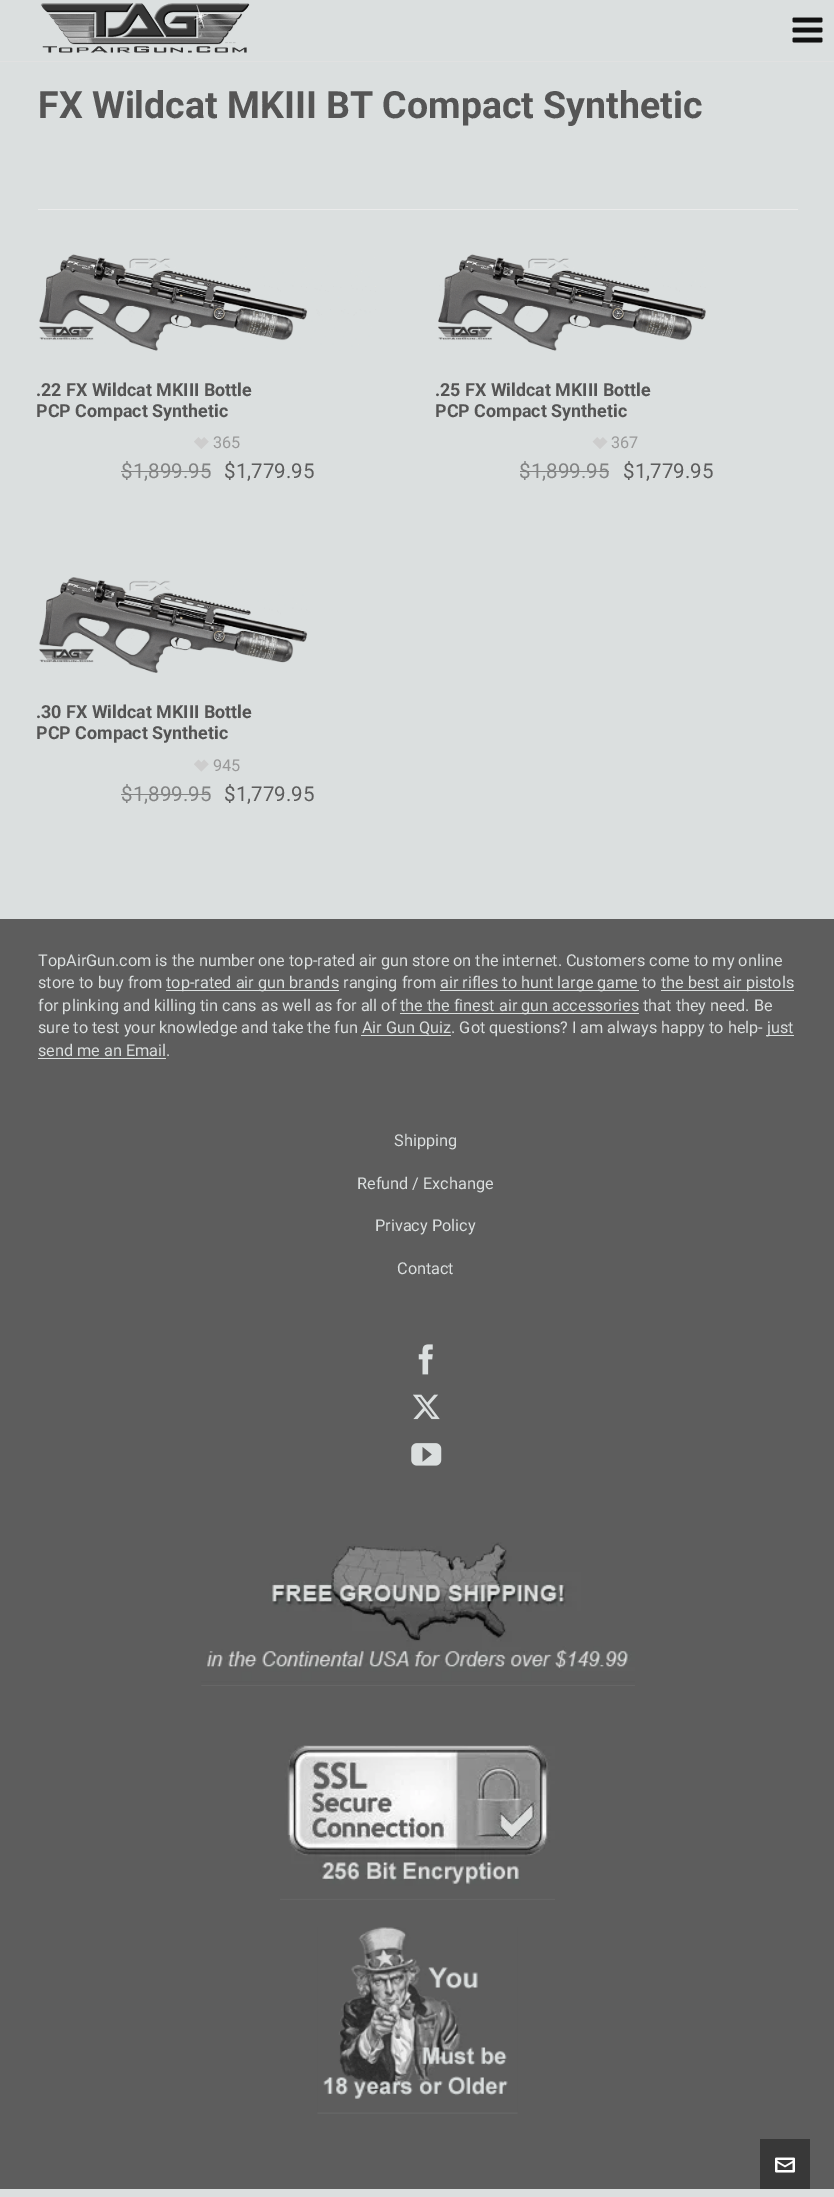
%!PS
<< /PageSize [834 2197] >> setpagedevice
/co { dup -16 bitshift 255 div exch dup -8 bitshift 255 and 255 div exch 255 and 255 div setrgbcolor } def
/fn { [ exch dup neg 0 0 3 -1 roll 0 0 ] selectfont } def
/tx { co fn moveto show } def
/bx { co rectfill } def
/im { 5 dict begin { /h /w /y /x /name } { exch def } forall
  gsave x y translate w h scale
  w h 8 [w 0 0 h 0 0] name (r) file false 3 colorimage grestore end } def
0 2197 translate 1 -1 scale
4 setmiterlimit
0 0 834 2197 16#DBDFDF bx
0 61 834 1 16#E1E1E1 bx
(media/1.raw) 40 3 210 50 im
(media/2.raw) 792 17 31 26 im
38 209 760 1 16#EBEBEB bx
(media/3.raw) 39 254 337 97 im
(media/4.raw) 194 437 15 12 im
121 471 89 1 16#838484 bx
(media/5.raw) 438 254 268 97 im
(media/6.raw) 592 437 16 12 im
520 471 89 1 16#838484 bx
(media/7.raw) 39 577 269 96 im
(media/8.raw) 194 759 15 13 im
121 794 89 1 16#838484 bx
0 919 834 1270 16#5D5D5D bx
166 990 173 1 16#DBDFDF bx
440 990 199 1 16#DBDFDF bx
661 990 133 1 16#DBDFDF bx
400 1013 239 1 16#DBDFDF bx
361 1035 90 1 16#DBDFDF bx
766 1035 28 1 16#DBDFDF bx
38 1058 128 1 16#DBDFDF bx
(media/9.raw) 418 1344 15 31 im
(media/10.raw) 413 1394 27 26 im
(media/11.raw) 411 1443 31 23 im
(media/12.raw) 201 1542 434 144 im
(media/13.raw) 280 1745 275 155 im
(media/14.raw) 317 1927 201 187 im
760 2139 50 50 16#383838 bx
(media/15.raw) 775 2157 20 16 im
(FX Wildcat MKIII BT Compact Synthetic) 38 118 /Roboto-Bold 37.5 16#555555 tx
(.22 FX Wildcat MKIII Bottle) 36 396 /Roboto-Bold 17.9 16#555555 tx
(PCP Compact Synthetic) 36 417 /Roboto-Bold 17.9 16#555555 tx
(365) 213 448 /Roboto-Regular 16.25 16#999999 tx
($1,899.95) 121 478 /Roboto-Regular 20.5 16#838484 tx
($1,779.95) 224 478 /Roboto-Regular 20.5 16#5D5D5D tx
(.25 FX Wildcat MKIII Bottle) 435 396 /Roboto-Bold 17.9 16#555555 tx
(PCP Compact Synthetic) 435 417 /Roboto-Bold 17.9 16#555555 tx
(367) 611 448 /Roboto-Regular 16.25 16#999999 tx
($1,899.95) 519 478 /Roboto-Regular 20.5 16#838484 tx
($1,779.95) 623 478 /Roboto-Regular 20.5 16#5D5D5D tx
(.30 FX Wildcat MKIII Bottle) 36 718 /Roboto-Bold 17.9 16#555555 tx
(PCP Compact Synthetic) 36 739 /Roboto-Bold 17.9 16#555555 tx
(945) 213 771 /Roboto-Regular 16.25 16#999999 tx
($1,899.95) 121 801 /Roboto-Regular 20.5 16#838484 tx
($1,779.95) 224 801 /Roboto-Regular 20.5 16#5D5D5D tx
(TopAirGun.com is the number one top-rated air gun store on the internet. Customers come to my online) 38 966 /Roboto-Regular 16.25 16#DBDFDF tx
(store to buy from) 38 988 /Roboto-Regular 16.25 16#DBDFDF tx
(top-rated air gun brands ranging from) 166 988 /Roboto-Regular 16.25 16#DBDFDF tx
(air rifles to hunt large game to) 440 988 /Roboto-Regular 16.25 16#DBDFDF tx
(the best air pistols) 661 988 /Roboto-Regular 16.25 16#DBDFDF tx
(for plinking and killing tin cans as well as for all of) 38 1011 /Roboto-Regular 16.25 16#DBDFDF tx
(the the finest air gun accessories that they need. Be) 400 1011 /Roboto-Regular 16.25 16#DBDFDF tx
(sure to test your knowledge and take the fun Air Gun Quiz. Got questions? I am always happy to help-) 38 1033 /Roboto-Regular 16.25 16#DBDFDF tx
(just) 767 1033 /Roboto-Regular 16.25 16#DBDFDF tx
(send me an Email.) 38 1056 /Roboto-Regular 16.25 16#DBDFDF tx
(Shipping) 394 1146 /Roboto-Regular 16.25 16#DBDFDF tx
(Refund / Exchange) 357 1189 /Roboto-Regular 16.25 16#DBDFDF tx
(Privacy Policy) 375 1231 /Roboto-Regular 16.25 16#DBDFDF tx
(Contact) 397 1274 /Roboto-Regular 16.25 16#DBDFDF tx
showpage
